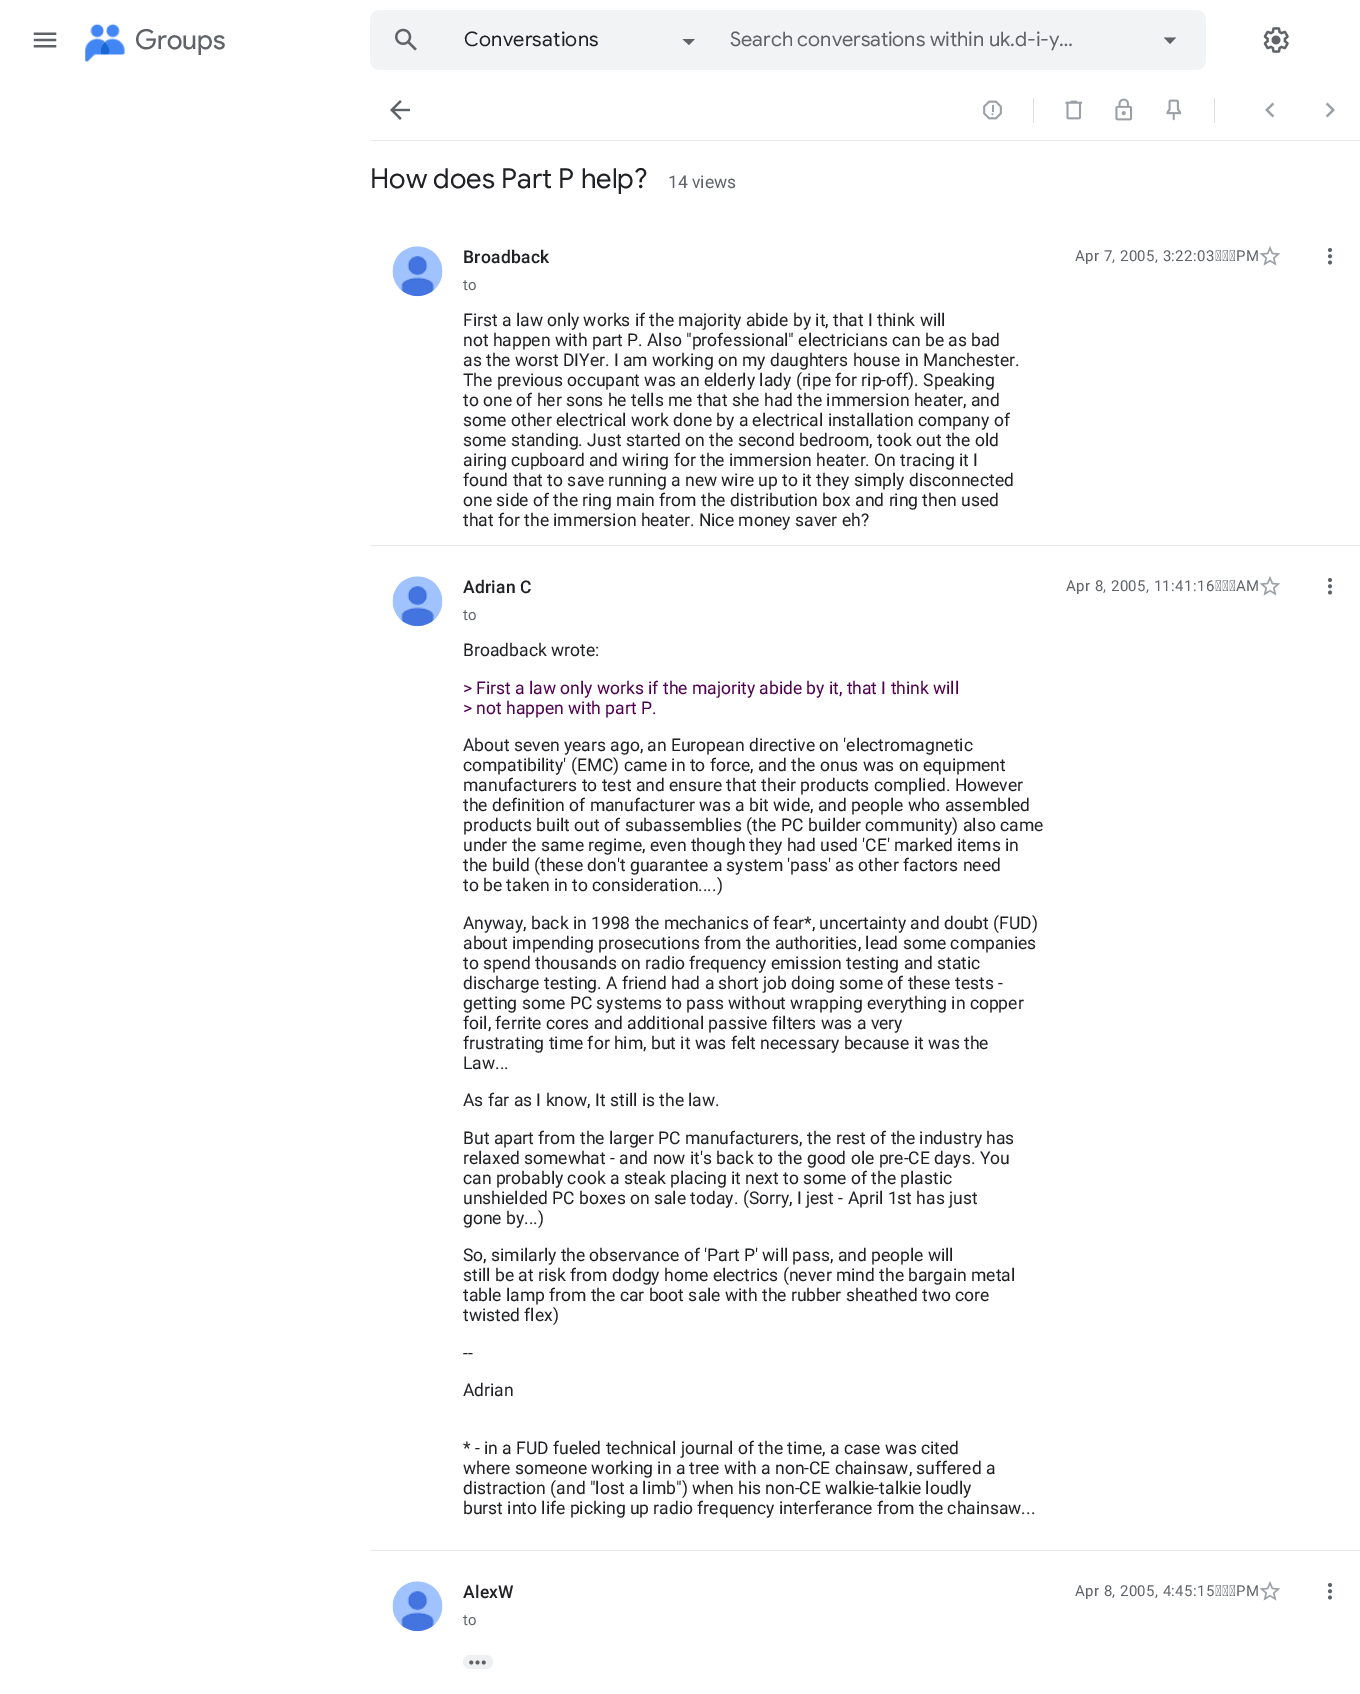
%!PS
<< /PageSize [1360 1694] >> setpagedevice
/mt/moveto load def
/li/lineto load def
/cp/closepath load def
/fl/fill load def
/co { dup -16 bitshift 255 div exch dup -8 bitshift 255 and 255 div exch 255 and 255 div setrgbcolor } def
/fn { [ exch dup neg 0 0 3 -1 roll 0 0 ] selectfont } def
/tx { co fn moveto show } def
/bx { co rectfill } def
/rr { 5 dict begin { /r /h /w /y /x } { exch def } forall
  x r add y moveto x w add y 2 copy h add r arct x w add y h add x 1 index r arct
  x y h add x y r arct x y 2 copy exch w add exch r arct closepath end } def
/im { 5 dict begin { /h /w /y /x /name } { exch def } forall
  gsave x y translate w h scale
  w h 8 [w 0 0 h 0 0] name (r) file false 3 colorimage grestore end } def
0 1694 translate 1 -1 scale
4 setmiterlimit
0 0 1360 1694 16#FFFFFF bx
(media/1.raw) 33 32 24 16 im
(media/2.raw) 85 23 40 40 im
16#F1F3F4 co
370 10 836 60 10 rr fl
(media/3.raw) 395 28 22 23 im
16#5F6368 co
682.5 39 mt 695 39 li 689 45 li cp fl
1164 37.5 mt 1170 44 li 1176 37.5 li cp fl
(media/4.raw) 1263 27 26 26 im
370 140 990 1 16#E8EAED bx
(media/5.raw) 390 100 20 20 im
(media/6.raw) 983 100 19 20 im
1033 98 1 25 16#DDDDDD bx
(media/7.raw) 1065 100 18 20 im
(media/8.raw) 1115 98 18 23 im
(media/9.raw) 1166 99 16 22 im
1214 98 1 25 16#DDDDDD bx
(media/10.raw) 1265 102 10 16 im
(media/11.raw) 1325 102 10 16 im
370 545 990 1 16#E8EAED bx
(media/12.raw) 392 246 51 51 im
(media/13.raw) 1259 246 22 20 im
(media/14.raw) 1327 248 6 17 im
370 1550 990 1 16#E8EAED bx
(media/15.raw) 392 576 51 51 im
(media/13.raw) 1259 576 22 20 im
(media/14.raw) 1327 578 6 17 im
(media/16.raw) 392 1581 51 51 im
(media/13.raw) 1259 1581 22 20 im
(media/14.raw) 1327 1583 6 17 im
16#EFF0F2 co
463 1655 30 14 7 rr fl
(media/17.raw) 469 1660 17 5 im
(Groups) 135 49 /ProductSans-Regular 27.5 16#5F6368 tx
/GoogleSans-Regular 20 fn
16#202124 co
464 46 mt .25 0 (Conversations) ashow
(Search conversations within uk.d-i-y…) 730 46 /GoogleSans-Regular 20 16#5F6368 tx
(How does Part P help?) 370 188 /GoogleSans-Regular 27.5 16#202124 tx
(14 views) 668 188 /Roboto-Regular 17.5 16#5F6368 tx
/Roboto-Medium 17.5 fn
16#202124 co
463 263 mt .25 0 (Broadback) ashow
/Roboto-Regular 15 fn
16#5F6368 co
1075 261 mt .4 0 (Apr 7, 2005, 3:22:03 PM) ashow
463 290 mt .4 0 (to) ashow
(First a law only works if the majority abide by it, that I think will) 463 326 /Roboto-Regular 17.5 16#202124 tx
(not happen with part P. Also "professional" electricians can be as bad) 463 346 /Roboto-Regular 17.5 16#202124 tx
(as the worst DIYer. I am working on my daughters house in Manchester.) 463 366 /Roboto-Regular 17.5 16#202124 tx
(The previous occupant was an elderly lady \(ripe for rip-off\). Speaking) 463 386 /Roboto-Regular 17.5 16#202124 tx
(to one of her sons he tells me that she had the immersion heater, and) 463 406 /Roboto-Regular 17.5 16#202124 tx
(some other electrical work done by a electrical installation company of) 463 426 /Roboto-Regular 17.5 16#202124 tx
(some standing. Just started on the second bedroom, took out the old) 463 446 /Roboto-Regular 17.5 16#202124 tx
(airing cupboard and wiring for the immersion heater. On tracing it I) 463 466 /Roboto-Regular 17.5 16#202124 tx
(found that to save running a new wire up to it they simply disconnected) 463 486 /Roboto-Regular 17.5 16#202124 tx
(one side of the ring main from the distribution box and ring then used) 463 506 /Roboto-Regular 17.5 16#202124 tx
(that for the immersion heater. Nice money saver eh?) 463 526 /Roboto-Regular 17.5 16#202124 tx
/Roboto-Medium 17.5 fn
463 593 mt .25 0 (Adrian C) ashow
/Roboto-Regular 15 fn
16#5F6368 co
1066 591 mt .4 0 (Apr 8, 2005, 11:41:16 AM) ashow
463 620 mt .4 0 (to) ashow
(Broadback wrote:) 463 656 /Roboto-Regular 17.5 16#202124 tx
(> First a law only works if the majority abide by it, that I think will) 463 694 /Roboto-Regular 17.5 16#500050 tx
(> not happen with part P.) 463 714 /Roboto-Regular 17.5 16#500050 tx
(About seven years ago, an European directive on 'electromagnetic) 463 751 /Roboto-Regular 17.5 16#202124 tx
(compatibility' \(EMC\) came in to force, and the onus was on equipment) 463 771 /Roboto-Regular 17.5 16#202124 tx
(manufacturers to test and ensure that their products complied. However) 463 791 /Roboto-Regular 17.5 16#202124 tx
(the definition of manufacturer was a bit wide, and people who assembled) 463 811 /Roboto-Regular 17.5 16#202124 tx
(products built out of subassemblies \(the PC builder community\) also came) 463 831 /Roboto-Regular 17.5 16#202124 tx
(under the same regime, even though they had used 'CE' marked items in) 463 851 /Roboto-Regular 17.5 16#202124 tx
(the build \(these don't guarantee a system 'pass' as other factors need) 463 871 /Roboto-Regular 17.5 16#202124 tx
(to be taken in to consideration....\)) 463 891 /Roboto-Regular 17.5 16#202124 tx
(Anyway, back in 1998 the mechanics of fear*, uncertainty and doubt \(FUD\)) 463 929 /Roboto-Regular 17.5 16#202124 tx
(about impending prosecutions from the authorities, lead some companies) 463 949 /Roboto-Regular 17.5 16#202124 tx
(to spend thousands on radio frequency emission testing and static) 463 969 /Roboto-Regular 17.5 16#202124 tx
(discharge testing. A friend had a short job doing some of these tests -) 463 989 /Roboto-Regular 17.5 16#202124 tx
(getting some PC systems to pass without wrapping everything in copper) 463 1009 /Roboto-Regular 17.5 16#202124 tx
(foil, ferrite cores and additional passive filters was a very) 463 1029 /Roboto-Regular 17.5 16#202124 tx
(frustrating time for him, but it was felt necessary because it was the) 463 1049 /Roboto-Regular 17.5 16#202124 tx
(Law...) 463 1069 /Roboto-Regular 17.5 16#202124 tx
(As far as I know, It still is the law.) 463 1106 /Roboto-Regular 17.5 16#202124 tx
(But apart from the larger PC manufacturers, the rest of the industry has) 463 1144 /Roboto-Regular 17.5 16#202124 tx
(relaxed somewhat - and now it's back to the good ole pre-CE days. You) 463 1164 /Roboto-Regular 17.5 16#202124 tx
(can probably cook a steak placing it next to some of the plastic) 463 1184 /Roboto-Regular 17.5 16#202124 tx
(unshielded PC boxes on sale today. \(Sorry, I jest - April 1st has just) 463 1204 /Roboto-Regular 17.5 16#202124 tx
(gone by...\)) 463 1224 /Roboto-Regular 17.5 16#202124 tx
(So, similarly the observance of 'Part P' will pass, and people will) 463 1261 /Roboto-Regular 17.5 16#202124 tx
(still be at risk from dodgy home electrics \(never mind the bargain metal) 463 1281 /Roboto-Regular 17.5 16#202124 tx
(table lamp from the car boot sale with the rubber sheathed two core) 463 1301 /Roboto-Regular 17.5 16#202124 tx
(twisted flex\)) 463 1321 /Roboto-Regular 17.5 16#202124 tx
(--) 463 1359 /Roboto-Regular 17.5 16#202124 tx
(Adrian) 463 1396 /Roboto-Regular 17.5 16#202124 tx
(* - in a FUD fueled technical journal of the time, a case was cited) 463 1454 /Roboto-Regular 17.5 16#202124 tx
(where someone working in a tree with a non-CE chainsaw, suffered a) 463 1474 /Roboto-Regular 17.5 16#202124 tx
(distraction \(and "lost a limb"\) when his non-CE walkie-talkie loudly) 463 1494 /Roboto-Regular 17.5 16#202124 tx
(burst into life picking up radio frequency interferance from the chainsaw...) 463 1514 /Roboto-Regular 17.5 16#202124 tx
/Roboto-Medium 17.5 fn
463 1598 mt .25 0 (AlexW) ashow
/Roboto-Regular 15 fn
16#5F6368 co
1075 1596 mt .4 0 (Apr 8, 2005, 4:45:15 PM) ashow
463 1625 mt .4 0 (to) ashow
showpage
